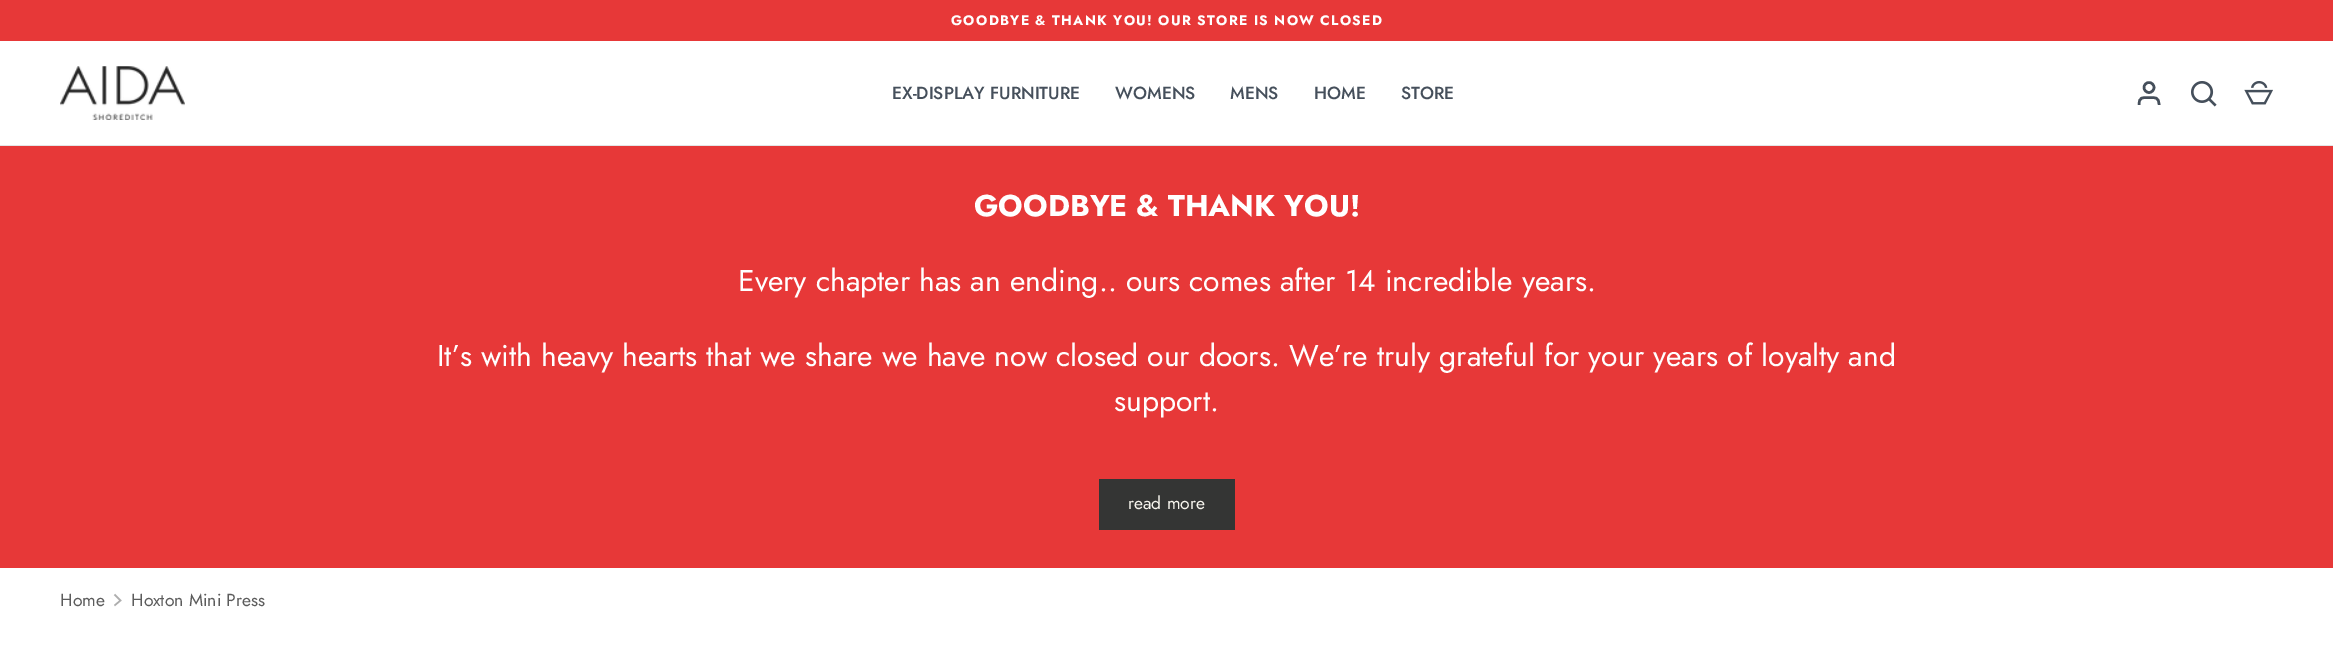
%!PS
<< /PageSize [2333 646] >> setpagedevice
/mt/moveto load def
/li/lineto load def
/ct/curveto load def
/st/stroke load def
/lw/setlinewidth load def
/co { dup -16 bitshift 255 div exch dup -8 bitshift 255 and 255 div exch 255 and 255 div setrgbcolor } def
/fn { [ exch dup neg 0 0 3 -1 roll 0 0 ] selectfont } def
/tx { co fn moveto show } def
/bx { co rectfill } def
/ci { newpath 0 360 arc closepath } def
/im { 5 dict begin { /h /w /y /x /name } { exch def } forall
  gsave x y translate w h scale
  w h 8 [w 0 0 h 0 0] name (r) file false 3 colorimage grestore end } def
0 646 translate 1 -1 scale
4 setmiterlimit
0 0 2333 646 16#FFFFFF bx
0 0 2333 41 16#E73838 bx
(media/1.raw) 60 66 125 54 im
16#454F5B co
2.5 lw
2149 87.5 5 ci st
2159 105 mt 2159 97 2155.5 97.5 2149 97.5 ct 2142 97.5 2139 97 2139 105 ct st
(media/2.raw) 2191 81 26 26 im
(media/3.raw) 2244 81 29 24 im
0 145 2333 1 16#E3E5E6 bx
0 146 2333 422 16#E73838 bx
1099 479 136 51 16#343534 bx
16#AEAEAE co
1.5 lw
114.5 594.5 mt 120.5 600.5 li 114.5 605.5 li st
/Jost-Bold 13.75 fn
16#FFFFFF co
951 25 mt 1.25 0 (GOODBYE & THANK YOU! OUR STORE IS NOW CLOSED) ashow
(EX-DISPLAY FURNITURE) 892 99 /Jost-Medium 17.5 16#454F5B tx
(WOMENS) 1115 99 /Jost-Medium 17.5 16#454F5B tx
(MENS) 1230 99 /Jost-Medium 17.5 16#454F5B tx
(HOME) 1314 99 /Jost-Medium 17.5 16#454F5B tx
(STORE) 1401 99 /Jost-Medium 17.5 16#454F5B tx
(GOODBYE & THANK YOU!) 974 216 /Jost-Bold 30 16#FFFFFF tx
(Every chapter has an ending.. ours comes after 14 incredible years.) 738 291 /Jost-Regular 30 16#FFFFFF tx
(It’s with heavy hearts that we share we have now closed our doors. We’re truly grateful for your years of loyalty and) 437 366 /Jost-Regular 30 16#FFFFFF tx
(support.) 1114 411 /Jost-Regular 30 16#FFFFFF tx
(read more) 1128 509 /Jost-Regular 17.5 16#F6F4ED tx
(Home) 60 606 /Jost-Regular 17.5 16#5C5C5C tx
(Hoxton Mini Press) 131 606 /Jost-Regular 17.5 16#5C5C5C tx
showpage
